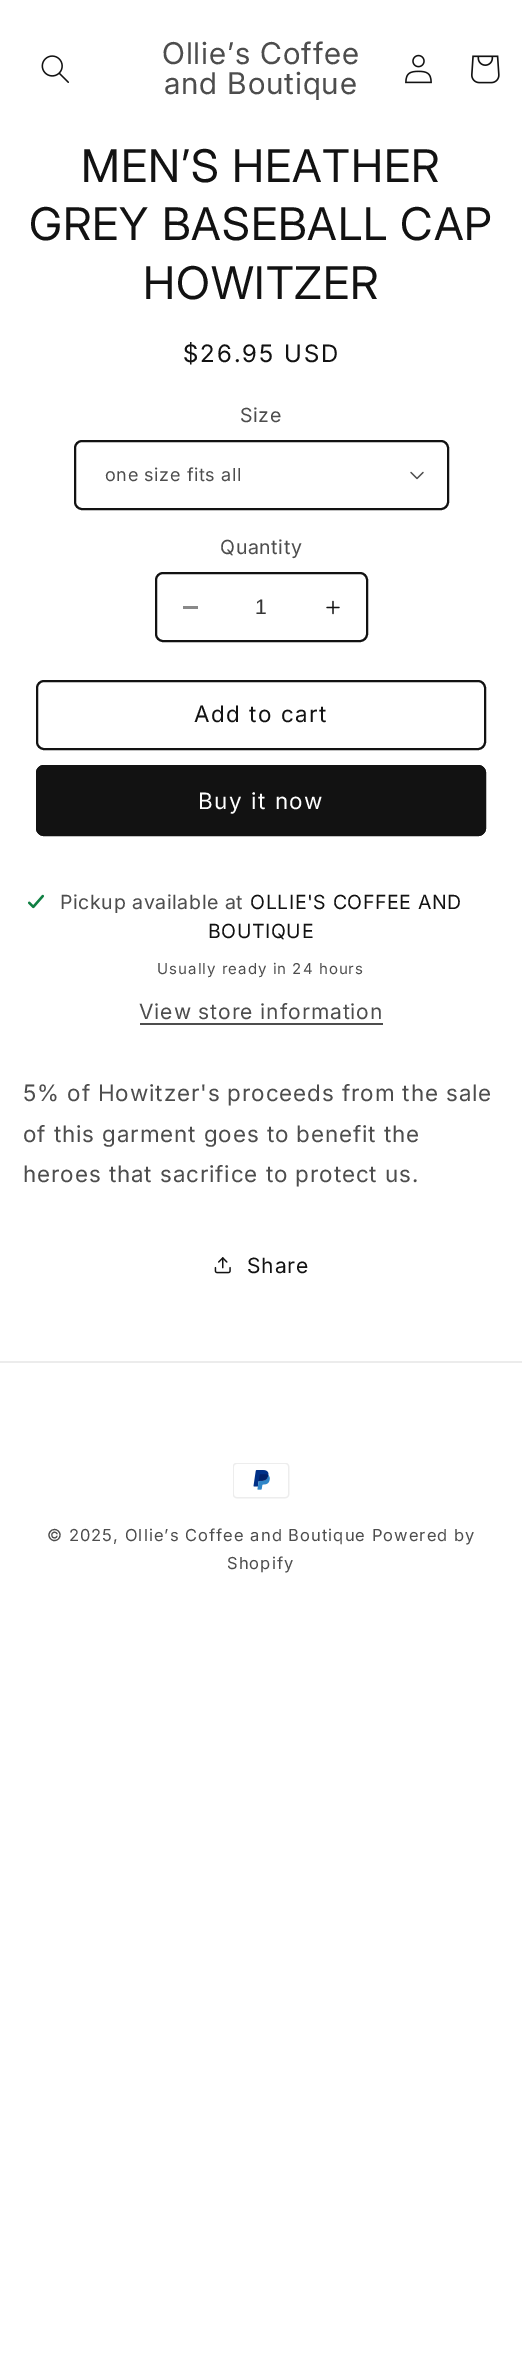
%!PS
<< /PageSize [522 2377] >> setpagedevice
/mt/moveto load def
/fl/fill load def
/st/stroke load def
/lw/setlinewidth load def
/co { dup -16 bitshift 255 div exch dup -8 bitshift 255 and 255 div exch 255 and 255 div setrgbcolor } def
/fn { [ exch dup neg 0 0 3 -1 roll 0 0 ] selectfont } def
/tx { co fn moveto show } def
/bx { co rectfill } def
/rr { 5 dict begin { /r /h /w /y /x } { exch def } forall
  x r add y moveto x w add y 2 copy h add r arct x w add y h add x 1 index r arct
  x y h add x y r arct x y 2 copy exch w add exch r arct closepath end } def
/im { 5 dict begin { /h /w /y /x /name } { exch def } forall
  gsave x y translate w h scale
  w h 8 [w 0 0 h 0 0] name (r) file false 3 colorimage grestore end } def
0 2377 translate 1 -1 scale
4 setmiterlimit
0 0 522 2377 16#FFFFFF bx
(media/1.raw) 41 55 28 28 im
(media/2.raw) 405 54 27 30 im
(media/3.raw) 471 55 29 29 im
(media/4.raw) 410 471 14 9 im
16#121212 co
2 lw
75 441 373 68 7 rr st
183 606 15 3 16#898989 bx
(media/5.raw) 326 600 14 15 im
16#121212 co
156 573 211 68 7 rr st
37 681 448 68 7 rr st
36 765 450 71 8 rr fl
37 766 448 69 7 rr st
(media/6.raw) 27 894 18 15 im
140 1023 243 2 16#4D4D4D bx
(media/7.raw) 214 1257 17 17 im
0 1361 522 2 16#ECECEC bx
(media/8.raw) 233 1463 57 36 im
/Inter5-Regular 30 fn
16#4D4D4D co
162 64 mt .9 0 (Ollie’s Coffee) ashow
164 94 mt .9 0 (and Boutique) ashow
/Inter-Regular 45 fn
16#121212 co
81 182 mt .9 0 (MEN’S HEATHER) ashow
29 240 mt .9 0 (GREY BASEBALL CAP) ashow
143 299 mt .9 0 (HOWITZER) ashow
/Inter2-Regular 24 fn
183 362 mt 2 0 ($26.95 USD) ashow
/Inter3-Regular 19.5 fn
16#4D4D4D co
240 422 mt .6 0 (Size) ashow
/Inter3-Regular 18 fn
105 481 mt .6 0 (one size fits all) ashow
/Inter3-Regular 19.5 fn
220 554 mt .6 0 (Quantity) ashow
(1) 255 614 /LiberationSans-Regular 21 16#363636 tx
/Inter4-Regular 22.5 fn
16#121212 co
194 722 mt 1.5 0 (Add to cart) ashow
/Inter3-Regular 22.5 fn
16#FFFFFF co
198 809 mt 1.5 0 (Buy it now) ashow
/Inter3-Regular 19.5 fn
16#4D4D4D co
60 909 mt .6 0 (Pickup available at) ashow
16#121212 co
250 909 mt .6 0 (OLLIE'S COFFEE AND) ashow
208 938 mt .6 0 (BOUTIQUE) ashow
/Inter3-Regular 15 fn
16#4D4D4D co
157 974 mt 1.05 0 (Usually ready in 24 hours) ashow
/Inter3-Regular 21 fn
139 1019 mt .9 0 (View store information) ashow
/Inter4-Regular 22.5 fn
23 1101 mt .9 0 (5% of Howitzer's proceeds from the sale) ashow
23 1142 mt .9 0 (of this garment goes to benefit the) ashow
23 1182 mt .9 0 (heroes that sacrifice to protect us.) ashow
/Inter3-Regular 21 fn
16#121212 co
247 1273 mt .9 0 (Share) ashow
/Inter3-Regular 16.5 fn
16#4D4D4D co
47 1541 mt 1.05 0 (© 2025, Ollie’s Coffee and Boutique Powered by) ashow
227 1569 mt 1.05 0 (Shopify) ashow
showpage
